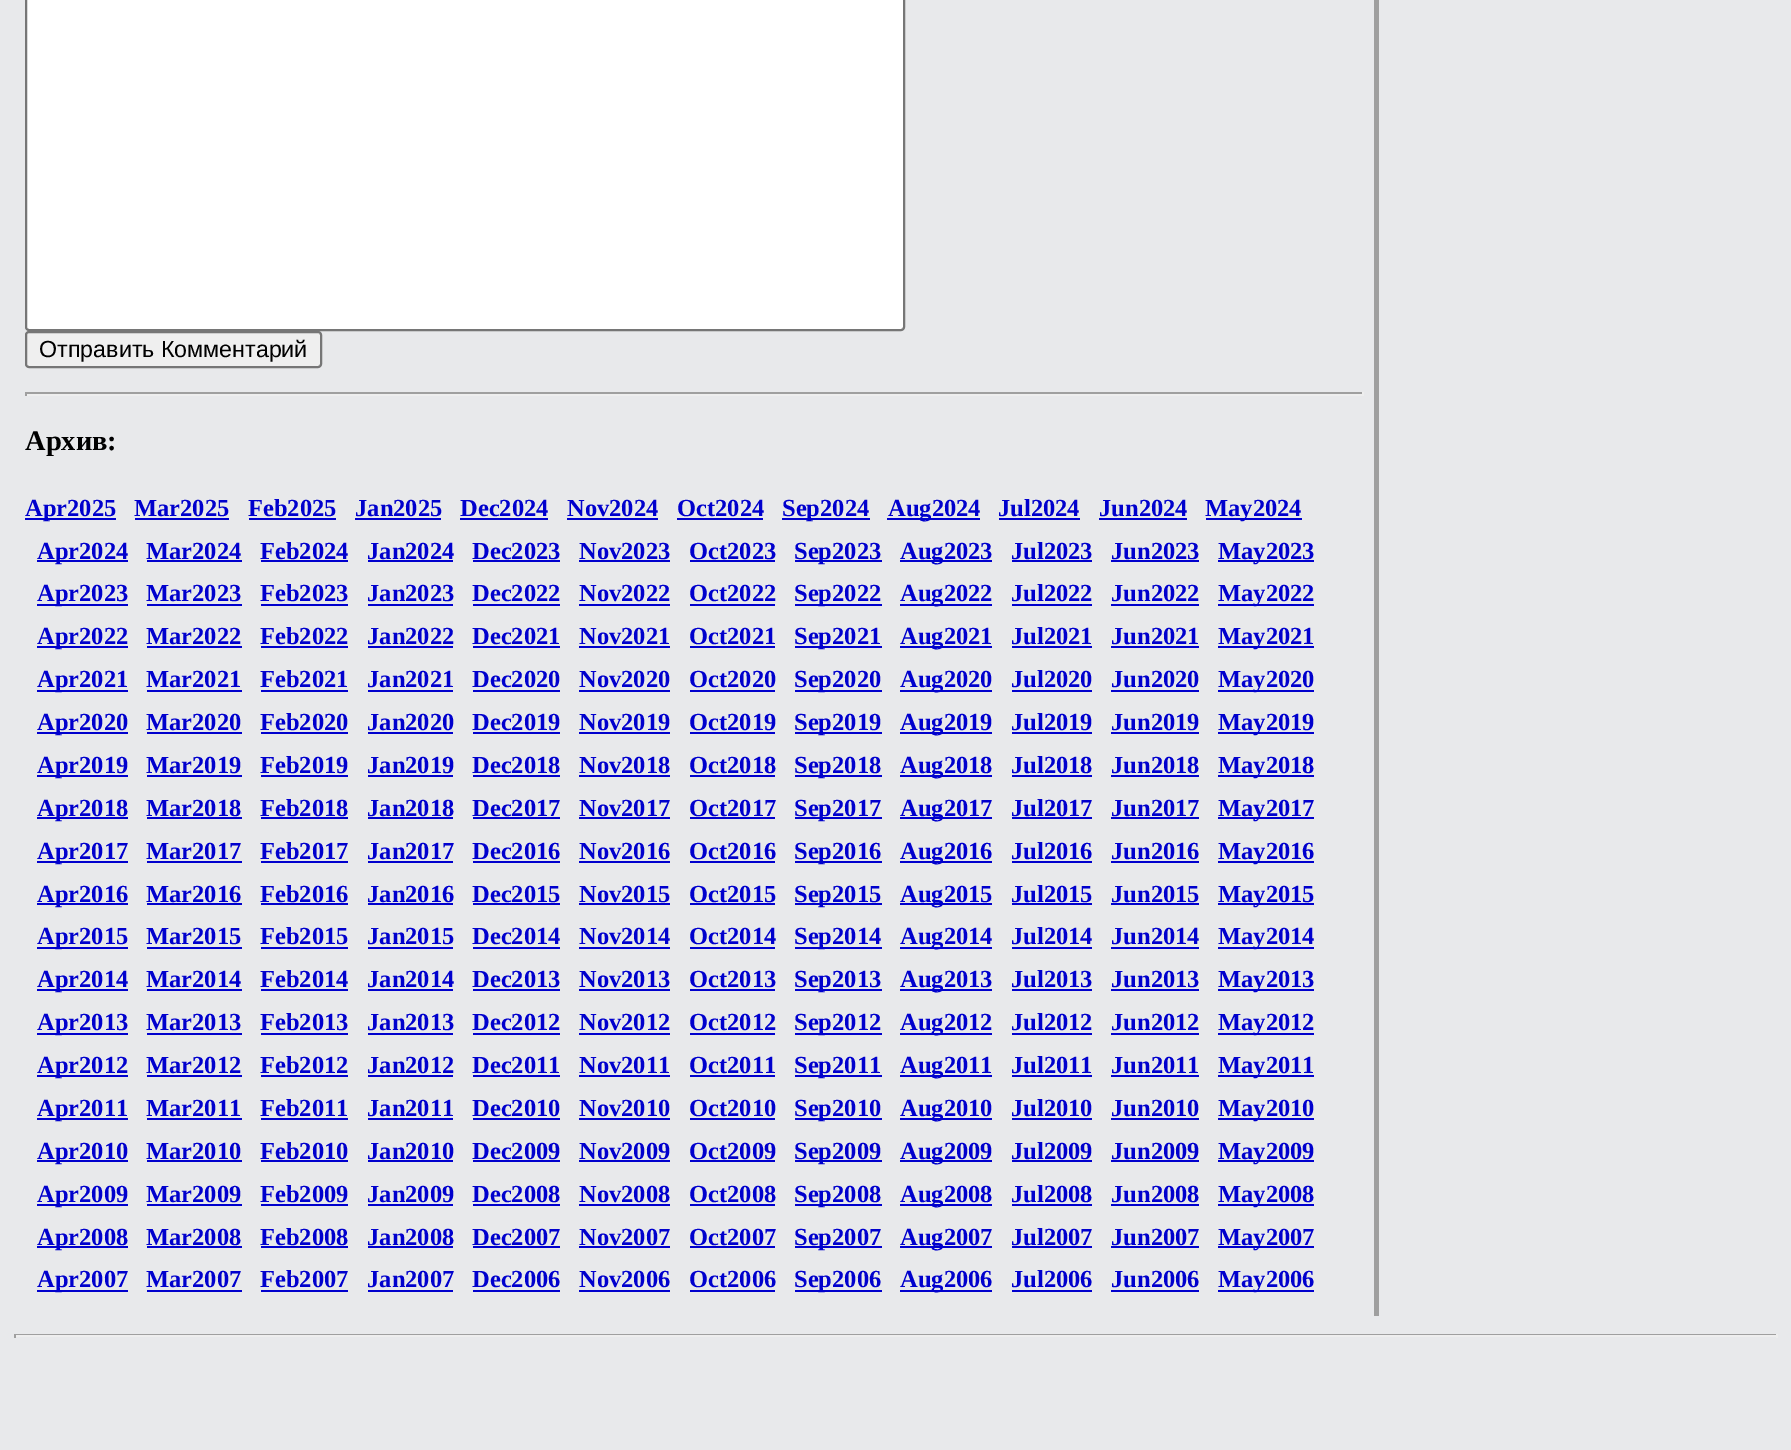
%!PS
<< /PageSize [1791 1450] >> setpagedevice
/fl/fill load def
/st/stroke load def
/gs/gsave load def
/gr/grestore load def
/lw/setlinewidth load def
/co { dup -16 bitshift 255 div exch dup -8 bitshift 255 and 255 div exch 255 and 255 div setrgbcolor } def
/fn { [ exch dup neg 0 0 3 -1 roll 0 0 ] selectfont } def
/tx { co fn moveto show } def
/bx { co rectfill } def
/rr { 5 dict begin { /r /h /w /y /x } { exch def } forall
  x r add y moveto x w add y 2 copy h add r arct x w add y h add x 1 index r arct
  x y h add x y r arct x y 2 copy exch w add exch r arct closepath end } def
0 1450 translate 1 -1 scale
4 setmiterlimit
0 0 1791 1450 16#E8E9EB bx
16#FFFFFF co
26 -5 878 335 3 rr gs fl gr
16#767676 co
2 lw
st
16#EFEFEF co
26 332 295 35 3 rr gs fl gr
16#767676 co
st
25 392 1338 2 16#9F9F9F bx
1362 392 2 4 16#EEEEEE bx
25 394 1338 2 16#EEEEEE bx
25 392 2 4 16#9F9F9F bx
25 518 91 2 16#0000CD bx
135 518 94 2 16#0000CD bx
249 518 87 2 16#0000CD bx
355 518 86 2 16#0000CD bx
460 518 88 2 16#0000CD bx
567 518 91 2 16#0000CD bx
677 518 86 2 16#0000CD bx
782 518 88 2 16#0000CD bx
887 518 93 2 16#0000CD bx
999 518 81 2 16#0000CD bx
1099 518 88 2 16#0000CD bx
1206 518 96 2 16#0000CD bx
37 560 91 2 16#0000CD bx
147 560 95 2 16#0000CD bx
261 560 87 2 16#0000CD bx
368 560 85 2 16#0000CD bx
473 560 87 2 16#0000CD bx
579 560 91 2 16#0000CD bx
690 560 85 2 16#0000CD bx
795 560 87 2 16#0000CD bx
900 560 92 2 16#0000CD bx
1012 560 80 2 16#0000CD bx
1111 560 88 2 16#0000CD bx
1218 560 96 2 16#0000CD bx
37 604 91 2 16#0000CD bx
147 604 95 2 16#0000CD bx
261 604 87 2 16#0000CD bx
368 604 85 2 16#0000CD bx
473 604 87 2 16#0000CD bx
579 604 91 2 16#0000CD bx
690 604 85 2 16#0000CD bx
795 604 87 2 16#0000CD bx
900 604 92 2 16#0000CD bx
1012 604 80 2 16#0000CD bx
1111 604 88 2 16#0000CD bx
1218 604 96 2 16#0000CD bx
37 646 91 2 16#0000CD bx
147 646 95 2 16#0000CD bx
261 646 87 2 16#0000CD bx
368 646 85 2 16#0000CD bx
473 646 87 2 16#0000CD bx
579 646 91 2 16#0000CD bx
690 646 85 2 16#0000CD bx
795 646 87 2 16#0000CD bx
900 646 92 2 16#0000CD bx
1012 646 80 2 16#0000CD bx
1111 646 88 2 16#0000CD bx
1218 646 96 2 16#0000CD bx
37 690 91 2 16#0000CD bx
147 690 95 2 16#0000CD bx
261 690 87 2 16#0000CD bx
368 690 85 2 16#0000CD bx
473 690 87 2 16#0000CD bx
579 690 91 2 16#0000CD bx
690 690 85 2 16#0000CD bx
795 690 87 2 16#0000CD bx
900 690 92 2 16#0000CD bx
1012 690 80 2 16#0000CD bx
1111 690 88 2 16#0000CD bx
1218 690 96 2 16#0000CD bx
37 732 91 2 16#0000CD bx
147 732 95 2 16#0000CD bx
261 732 87 2 16#0000CD bx
368 732 85 2 16#0000CD bx
473 732 87 2 16#0000CD bx
579 732 91 2 16#0000CD bx
690 732 85 2 16#0000CD bx
795 732 87 2 16#0000CD bx
900 732 92 2 16#0000CD bx
1012 732 80 2 16#0000CD bx
1111 732 88 2 16#0000CD bx
1218 732 96 2 16#0000CD bx
37 775 91 2 16#0000CD bx
147 775 95 2 16#0000CD bx
261 775 87 2 16#0000CD bx
368 775 85 2 16#0000CD bx
473 775 87 2 16#0000CD bx
579 775 91 2 16#0000CD bx
690 775 85 2 16#0000CD bx
795 775 87 2 16#0000CD bx
900 775 92 2 16#0000CD bx
1012 775 80 2 16#0000CD bx
1111 775 88 2 16#0000CD bx
1218 775 96 2 16#0000CD bx
37 817 91 2 16#0000CD bx
147 817 95 2 16#0000CD bx
261 817 87 2 16#0000CD bx
368 817 85 2 16#0000CD bx
473 817 87 2 16#0000CD bx
579 817 91 2 16#0000CD bx
690 817 85 2 16#0000CD bx
795 817 87 2 16#0000CD bx
900 817 92 2 16#0000CD bx
1012 817 80 2 16#0000CD bx
1111 817 88 2 16#0000CD bx
1218 817 96 2 16#0000CD bx
37 861 91 2 16#0000CD bx
147 861 95 2 16#0000CD bx
261 861 87 2 16#0000CD bx
368 861 85 2 16#0000CD bx
473 861 87 2 16#0000CD bx
579 861 91 2 16#0000CD bx
690 861 85 2 16#0000CD bx
795 861 87 2 16#0000CD bx
900 861 92 2 16#0000CD bx
1012 861 80 2 16#0000CD bx
1111 861 88 2 16#0000CD bx
1218 861 96 2 16#0000CD bx
37 903 91 2 16#0000CD bx
147 903 95 2 16#0000CD bx
261 903 87 2 16#0000CD bx
368 903 85 2 16#0000CD bx
473 903 87 2 16#0000CD bx
579 903 91 2 16#0000CD bx
690 903 85 2 16#0000CD bx
795 903 87 2 16#0000CD bx
900 903 92 2 16#0000CD bx
1012 903 80 2 16#0000CD bx
1111 903 88 2 16#0000CD bx
1218 903 96 2 16#0000CD bx
37 947 91 2 16#0000CD bx
147 947 95 2 16#0000CD bx
261 947 87 2 16#0000CD bx
368 947 85 2 16#0000CD bx
473 947 87 2 16#0000CD bx
579 947 91 2 16#0000CD bx
690 947 85 2 16#0000CD bx
795 947 87 2 16#0000CD bx
900 947 92 2 16#0000CD bx
1012 947 80 2 16#0000CD bx
1111 947 88 2 16#0000CD bx
1218 947 96 2 16#0000CD bx
37 989 91 2 16#0000CD bx
147 989 95 2 16#0000CD bx
261 989 87 2 16#0000CD bx
368 989 85 2 16#0000CD bx
473 989 87 2 16#0000CD bx
579 989 91 2 16#0000CD bx
690 989 85 2 16#0000CD bx
795 989 87 2 16#0000CD bx
900 989 92 2 16#0000CD bx
1012 989 80 2 16#0000CD bx
1111 989 88 2 16#0000CD bx
1218 989 96 2 16#0000CD bx
37 1033 91 2 16#0000CD bx
147 1033 95 2 16#0000CD bx
261 1033 87 2 16#0000CD bx
368 1033 85 2 16#0000CD bx
473 1033 87 2 16#0000CD bx
579 1033 91 2 16#0000CD bx
690 1033 85 2 16#0000CD bx
795 1033 87 2 16#0000CD bx
900 1033 92 2 16#0000CD bx
1012 1033 80 2 16#0000CD bx
1111 1033 88 2 16#0000CD bx
1218 1033 96 2 16#0000CD bx
37 1075 91 2 16#0000CD bx
147 1075 95 2 16#0000CD bx
261 1075 87 2 16#0000CD bx
368 1075 85 2 16#0000CD bx
473 1075 87 2 16#0000CD bx
579 1075 91 2 16#0000CD bx
690 1075 85 2 16#0000CD bx
795 1075 87 2 16#0000CD bx
900 1075 92 2 16#0000CD bx
1012 1075 80 2 16#0000CD bx
1111 1075 88 2 16#0000CD bx
1218 1075 96 2 16#0000CD bx
37 1118 91 2 16#0000CD bx
147 1118 95 2 16#0000CD bx
261 1118 87 2 16#0000CD bx
368 1118 85 2 16#0000CD bx
473 1118 87 2 16#0000CD bx
579 1118 91 2 16#0000CD bx
690 1118 85 2 16#0000CD bx
795 1118 87 2 16#0000CD bx
900 1118 92 2 16#0000CD bx
1012 1118 80 2 16#0000CD bx
1111 1118 88 2 16#0000CD bx
1218 1118 96 2 16#0000CD bx
37 1160 91 2 16#0000CD bx
147 1160 95 2 16#0000CD bx
261 1160 87 2 16#0000CD bx
368 1160 85 2 16#0000CD bx
473 1160 87 2 16#0000CD bx
579 1160 91 2 16#0000CD bx
690 1160 85 2 16#0000CD bx
795 1160 87 2 16#0000CD bx
900 1160 92 2 16#0000CD bx
1012 1160 80 2 16#0000CD bx
1111 1160 88 2 16#0000CD bx
1218 1160 96 2 16#0000CD bx
37 1204 91 2 16#0000CD bx
147 1204 95 2 16#0000CD bx
261 1204 87 2 16#0000CD bx
368 1204 85 2 16#0000CD bx
473 1204 87 2 16#0000CD bx
579 1204 91 2 16#0000CD bx
690 1204 85 2 16#0000CD bx
795 1204 87 2 16#0000CD bx
900 1204 92 2 16#0000CD bx
1012 1204 80 2 16#0000CD bx
1111 1204 88 2 16#0000CD bx
1218 1204 96 2 16#0000CD bx
37 1246 91 2 16#0000CD bx
147 1246 95 2 16#0000CD bx
261 1246 87 2 16#0000CD bx
368 1246 85 2 16#0000CD bx
473 1246 87 2 16#0000CD bx
579 1246 91 2 16#0000CD bx
690 1246 85 2 16#0000CD bx
795 1246 87 2 16#0000CD bx
900 1246 92 2 16#0000CD bx
1012 1246 80 2 16#0000CD bx
1111 1246 88 2 16#0000CD bx
1218 1246 96 2 16#0000CD bx
37 1290 91 2 16#0000CD bx
147 1290 95 2 16#0000CD bx
261 1290 87 2 16#0000CD bx
368 1290 85 2 16#0000CD bx
473 1290 87 2 16#0000CD bx
579 1290 91 2 16#0000CD bx
690 1290 85 2 16#0000CD bx
795 1290 87 2 16#0000CD bx
900 1290 92 2 16#0000CD bx
1012 1290 80 2 16#0000CD bx
1111 1290 88 2 16#0000CD bx
1218 1290 96 2 16#0000CD bx
1374 0 5 1316 16#9F9F9F bx
14 1334 1764 1 16#9F9F9F bx
1776 1334 2 4 16#EEEEEE bx
14 1335 1764 2 16#EEEEEE bx
14 1334 2 4 16#9F9F9F bx
(Отправить Комментарий) 39 357 /LiberationSans-Regular 23.25 16#000000 tx
(Архив:) 25 450 /LiberationSerif-Bold 28.5 16#000000 tx
(Apr2025) 25 516 /LiberationSerif-Bold 24.5 16#0000CD tx
(Mar2025) 134 516 /LiberationSerif-Bold 24.5 16#0000CD tx
(Feb2025) 248 516 /LiberationSerif-Bold 24.5 16#0000CD tx
(Jan2025) 355 516 /LiberationSerif-Bold 24.5 16#0000CD tx
(Dec2024) 460 516 /LiberationSerif-Bold 24.5 16#0000CD tx
(Nov2024) 567 516 /LiberationSerif-Bold 24.5 16#0000CD tx
(Oct2024) 677 516 /LiberationSerif-Bold 24.5 16#0000CD tx
(Sep2024) 782 516 /LiberationSerif-Bold 24.5 16#0000CD tx
(Aug2024) 888 516 /LiberationSerif-Bold 24.5 16#0000CD tx
(Jul2024) 998 516 /LiberationSerif-Bold 24.5 16#0000CD tx
(Jun2024) 1099 516 /LiberationSerif-Bold 24.5 16#0000CD tx
(May2024) 1205 516 /LiberationSerif-Bold 24.5 16#0000CD tx
(Apr2024) 37 559 /LiberationSerif-Bold 24.5 16#0000CD tx
(Mar2024) 146 559 /LiberationSerif-Bold 24.5 16#0000CD tx
(Feb2024) 260 559 /LiberationSerif-Bold 24.5 16#0000CD tx
(Jan2024) 367 559 /LiberationSerif-Bold 24.5 16#0000CD tx
(Dec2023) 472 559 /LiberationSerif-Bold 24.5 16#0000CD tx
(Nov2023) 579 559 /LiberationSerif-Bold 24.5 16#0000CD tx
(Oct2023) 689 559 /LiberationSerif-Bold 24.5 16#0000CD tx
(Sep2023) 794 559 /LiberationSerif-Bold 24.5 16#0000CD tx
(Aug2023) 900 559 /LiberationSerif-Bold 24.5 16#0000CD tx
(Jul2023) 1011 559 /LiberationSerif-Bold 24.5 16#0000CD tx
(Jun2023) 1111 559 /LiberationSerif-Bold 24.5 16#0000CD tx
(May2023) 1218 559 /LiberationSerif-Bold 24.5 16#0000CD tx
(Apr2023) 37 601 /LiberationSerif-Bold 24.5 16#0000CD tx
(Mar2023) 146 601 /LiberationSerif-Bold 24.5 16#0000CD tx
(Feb2023) 260 601 /LiberationSerif-Bold 24.5 16#0000CD tx
(Jan2023) 367 601 /LiberationSerif-Bold 24.5 16#0000CD tx
(Dec2022) 472 601 /LiberationSerif-Bold 24.5 16#0000CD tx
(Nov2022) 579 601 /LiberationSerif-Bold 24.5 16#0000CD tx
(Oct2022) 689 601 /LiberationSerif-Bold 24.5 16#0000CD tx
(Sep2022) 794 601 /LiberationSerif-Bold 24.5 16#0000CD tx
(Aug2022) 900 601 /LiberationSerif-Bold 24.5 16#0000CD tx
(Jul2022) 1011 601 /LiberationSerif-Bold 24.5 16#0000CD tx
(Jun2022) 1111 601 /LiberationSerif-Bold 24.5 16#0000CD tx
(May2022) 1218 601 /LiberationSerif-Bold 24.5 16#0000CD tx
(Apr2022) 37 644 /LiberationSerif-Bold 24.5 16#0000CD tx
(Mar2022) 146 644 /LiberationSerif-Bold 24.5 16#0000CD tx
(Feb2022) 260 644 /LiberationSerif-Bold 24.5 16#0000CD tx
(Jan2022) 367 644 /LiberationSerif-Bold 24.5 16#0000CD tx
(Dec2021) 472 644 /LiberationSerif-Bold 24.5 16#0000CD tx
(Nov2021) 579 644 /LiberationSerif-Bold 24.5 16#0000CD tx
(Oct2021) 689 644 /LiberationSerif-Bold 24.5 16#0000CD tx
(Sep2021) 794 644 /LiberationSerif-Bold 24.5 16#0000CD tx
(Aug2021) 900 644 /LiberationSerif-Bold 24.5 16#0000CD tx
(Jul2021) 1011 644 /LiberationSerif-Bold 24.5 16#0000CD tx
(Jun2021) 1111 644 /LiberationSerif-Bold 24.5 16#0000CD tx
(May2021) 1218 644 /LiberationSerif-Bold 24.5 16#0000CD tx
(Apr2021) 37 687 /LiberationSerif-Bold 24.5 16#0000CD tx
(Mar2021) 146 687 /LiberationSerif-Bold 24.5 16#0000CD tx
(Feb2021) 260 687 /LiberationSerif-Bold 24.5 16#0000CD tx
(Jan2021) 367 687 /LiberationSerif-Bold 24.5 16#0000CD tx
(Dec2020) 472 687 /LiberationSerif-Bold 24.5 16#0000CD tx
(Nov2020) 579 687 /LiberationSerif-Bold 24.5 16#0000CD tx
(Oct2020) 689 687 /LiberationSerif-Bold 24.5 16#0000CD tx
(Sep2020) 794 687 /LiberationSerif-Bold 24.5 16#0000CD tx
(Aug2020) 900 687 /LiberationSerif-Bold 24.5 16#0000CD tx
(Jul2020) 1011 687 /LiberationSerif-Bold 24.5 16#0000CD tx
(Jun2020) 1111 687 /LiberationSerif-Bold 24.5 16#0000CD tx
(May2020) 1218 687 /LiberationSerif-Bold 24.5 16#0000CD tx
(Apr2020) 37 730 /LiberationSerif-Bold 24.5 16#0000CD tx
(Mar2020) 146 730 /LiberationSerif-Bold 24.5 16#0000CD tx
(Feb2020) 260 730 /LiberationSerif-Bold 24.5 16#0000CD tx
(Jan2020) 367 730 /LiberationSerif-Bold 24.5 16#0000CD tx
(Dec2019) 472 730 /LiberationSerif-Bold 24.5 16#0000CD tx
(Nov2019) 579 730 /LiberationSerif-Bold 24.5 16#0000CD tx
(Oct2019) 689 730 /LiberationSerif-Bold 24.5 16#0000CD tx
(Sep2019) 794 730 /LiberationSerif-Bold 24.5 16#0000CD tx
(Aug2019) 900 730 /LiberationSerif-Bold 24.5 16#0000CD tx
(Jul2019) 1011 730 /LiberationSerif-Bold 24.5 16#0000CD tx
(Jun2019) 1111 730 /LiberationSerif-Bold 24.5 16#0000CD tx
(May2019) 1218 730 /LiberationSerif-Bold 24.5 16#0000CD tx
(Apr2019) 37 773 /LiberationSerif-Bold 24.5 16#0000CD tx
(Mar2019) 146 773 /LiberationSerif-Bold 24.5 16#0000CD tx
(Feb2019) 260 773 /LiberationSerif-Bold 24.5 16#0000CD tx
(Jan2019) 367 773 /LiberationSerif-Bold 24.5 16#0000CD tx
(Dec2018) 472 773 /LiberationSerif-Bold 24.5 16#0000CD tx
(Nov2018) 579 773 /LiberationSerif-Bold 24.5 16#0000CD tx
(Oct2018) 689 773 /LiberationSerif-Bold 24.5 16#0000CD tx
(Sep2018) 794 773 /LiberationSerif-Bold 24.5 16#0000CD tx
(Aug2018) 900 773 /LiberationSerif-Bold 24.5 16#0000CD tx
(Jul2018) 1011 773 /LiberationSerif-Bold 24.5 16#0000CD tx
(Jun2018) 1111 773 /LiberationSerif-Bold 24.5 16#0000CD tx
(May2018) 1218 773 /LiberationSerif-Bold 24.5 16#0000CD tx
(Apr2018) 37 816 /LiberationSerif-Bold 24.5 16#0000CD tx
(Mar2018) 146 816 /LiberationSerif-Bold 24.5 16#0000CD tx
(Feb2018) 260 816 /LiberationSerif-Bold 24.5 16#0000CD tx
(Jan2018) 367 816 /LiberationSerif-Bold 24.5 16#0000CD tx
(Dec2017) 472 816 /LiberationSerif-Bold 24.5 16#0000CD tx
(Nov2017) 579 816 /LiberationSerif-Bold 24.5 16#0000CD tx
(Oct2017) 689 816 /LiberationSerif-Bold 24.5 16#0000CD tx
(Sep2017) 794 816 /LiberationSerif-Bold 24.5 16#0000CD tx
(Aug2017) 900 816 /LiberationSerif-Bold 24.5 16#0000CD tx
(Jul2017) 1011 816 /LiberationSerif-Bold 24.5 16#0000CD tx
(Jun2017) 1111 816 /LiberationSerif-Bold 24.5 16#0000CD tx
(May2017) 1218 816 /LiberationSerif-Bold 24.5 16#0000CD tx
(Apr2017) 37 859 /LiberationSerif-Bold 24.5 16#0000CD tx
(Mar2017) 146 859 /LiberationSerif-Bold 24.5 16#0000CD tx
(Feb2017) 260 859 /LiberationSerif-Bold 24.5 16#0000CD tx
(Jan2017) 367 859 /LiberationSerif-Bold 24.5 16#0000CD tx
(Dec2016) 472 859 /LiberationSerif-Bold 24.5 16#0000CD tx
(Nov2016) 579 859 /LiberationSerif-Bold 24.5 16#0000CD tx
(Oct2016) 689 859 /LiberationSerif-Bold 24.5 16#0000CD tx
(Sep2016) 794 859 /LiberationSerif-Bold 24.5 16#0000CD tx
(Aug2016) 900 859 /LiberationSerif-Bold 24.5 16#0000CD tx
(Jul2016) 1011 859 /LiberationSerif-Bold 24.5 16#0000CD tx
(Jun2016) 1111 859 /LiberationSerif-Bold 24.5 16#0000CD tx
(May2016) 1218 859 /LiberationSerif-Bold 24.5 16#0000CD tx
(Apr2016) 37 902 /LiberationSerif-Bold 24.5 16#0000CD tx
(Mar2016) 146 902 /LiberationSerif-Bold 24.5 16#0000CD tx
(Feb2016) 260 902 /LiberationSerif-Bold 24.5 16#0000CD tx
(Jan2016) 367 902 /LiberationSerif-Bold 24.5 16#0000CD tx
(Dec2015) 472 902 /LiberationSerif-Bold 24.5 16#0000CD tx
(Nov2015) 579 902 /LiberationSerif-Bold 24.5 16#0000CD tx
(Oct2015) 689 902 /LiberationSerif-Bold 24.5 16#0000CD tx
(Sep2015) 794 902 /LiberationSerif-Bold 24.5 16#0000CD tx
(Aug2015) 900 902 /LiberationSerif-Bold 24.5 16#0000CD tx
(Jul2015) 1011 902 /LiberationSerif-Bold 24.5 16#0000CD tx
(Jun2015) 1111 902 /LiberationSerif-Bold 24.5 16#0000CD tx
(May2015) 1218 902 /LiberationSerif-Bold 24.5 16#0000CD tx
(Apr2015) 37 944 /LiberationSerif-Bold 24.5 16#0000CD tx
(Mar2015) 146 944 /LiberationSerif-Bold 24.5 16#0000CD tx
(Feb2015) 260 944 /LiberationSerif-Bold 24.5 16#0000CD tx
(Jan2015) 367 944 /LiberationSerif-Bold 24.5 16#0000CD tx
(Dec2014) 472 944 /LiberationSerif-Bold 24.5 16#0000CD tx
(Nov2014) 579 944 /LiberationSerif-Bold 24.5 16#0000CD tx
(Oct2014) 689 944 /LiberationSerif-Bold 24.5 16#0000CD tx
(Sep2014) 794 944 /LiberationSerif-Bold 24.5 16#0000CD tx
(Aug2014) 900 944 /LiberationSerif-Bold 24.5 16#0000CD tx
(Jul2014) 1011 944 /LiberationSerif-Bold 24.5 16#0000CD tx
(Jun2014) 1111 944 /LiberationSerif-Bold 24.5 16#0000CD tx
(May2014) 1218 944 /LiberationSerif-Bold 24.5 16#0000CD tx
(Apr2014) 37 987 /LiberationSerif-Bold 24.5 16#0000CD tx
(Mar2014) 146 987 /LiberationSerif-Bold 24.5 16#0000CD tx
(Feb2014) 260 987 /LiberationSerif-Bold 24.5 16#0000CD tx
(Jan2014) 367 987 /LiberationSerif-Bold 24.5 16#0000CD tx
(Dec2013) 472 987 /LiberationSerif-Bold 24.5 16#0000CD tx
(Nov2013) 579 987 /LiberationSerif-Bold 24.5 16#0000CD tx
(Oct2013) 689 987 /LiberationSerif-Bold 24.5 16#0000CD tx
(Sep2013) 794 987 /LiberationSerif-Bold 24.5 16#0000CD tx
(Aug2013) 900 987 /LiberationSerif-Bold 24.5 16#0000CD tx
(Jul2013) 1011 987 /LiberationSerif-Bold 24.5 16#0000CD tx
(Jun2013) 1111 987 /LiberationSerif-Bold 24.5 16#0000CD tx
(May2013) 1218 987 /LiberationSerif-Bold 24.5 16#0000CD tx
(Apr2013) 37 1030 /LiberationSerif-Bold 24.5 16#0000CD tx
(Mar2013) 146 1030 /LiberationSerif-Bold 24.5 16#0000CD tx
(Feb2013) 260 1030 /LiberationSerif-Bold 24.5 16#0000CD tx
(Jan2013) 367 1030 /LiberationSerif-Bold 24.5 16#0000CD tx
(Dec2012) 472 1030 /LiberationSerif-Bold 24.5 16#0000CD tx
(Nov2012) 579 1030 /LiberationSerif-Bold 24.5 16#0000CD tx
(Oct2012) 689 1030 /LiberationSerif-Bold 24.5 16#0000CD tx
(Sep2012) 794 1030 /LiberationSerif-Bold 24.5 16#0000CD tx
(Aug2012) 900 1030 /LiberationSerif-Bold 24.5 16#0000CD tx
(Jul2012) 1011 1030 /LiberationSerif-Bold 24.5 16#0000CD tx
(Jun2012) 1111 1030 /LiberationSerif-Bold 24.5 16#0000CD tx
(May2012) 1218 1030 /LiberationSerif-Bold 24.5 16#0000CD tx
(Apr2012) 37 1073 /LiberationSerif-Bold 24.5 16#0000CD tx
(Mar2012) 146 1073 /LiberationSerif-Bold 24.5 16#0000CD tx
(Feb2012) 260 1073 /LiberationSerif-Bold 24.5 16#0000CD tx
(Jan2012) 367 1073 /LiberationSerif-Bold 24.5 16#0000CD tx
(Dec2011) 472 1073 /LiberationSerif-Bold 24.5 16#0000CD tx
(Nov2011) 579 1073 /LiberationSerif-Bold 24.5 16#0000CD tx
(Oct2011) 689 1073 /LiberationSerif-Bold 24.5 16#0000CD tx
(Sep2011) 794 1073 /LiberationSerif-Bold 24.5 16#0000CD tx
(Aug2011) 900 1073 /LiberationSerif-Bold 24.5 16#0000CD tx
(Jul2011) 1011 1073 /LiberationSerif-Bold 24.5 16#0000CD tx
(Jun2011) 1111 1073 /LiberationSerif-Bold 24.5 16#0000CD tx
(May2011) 1218 1073 /LiberationSerif-Bold 24.5 16#0000CD tx
(Apr2011) 37 1116 /LiberationSerif-Bold 24.5 16#0000CD tx
(Mar2011) 146 1116 /LiberationSerif-Bold 24.5 16#0000CD tx
(Feb2011) 260 1116 /LiberationSerif-Bold 24.5 16#0000CD tx
(Jan2011) 367 1116 /LiberationSerif-Bold 24.5 16#0000CD tx
(Dec2010) 472 1116 /LiberationSerif-Bold 24.5 16#0000CD tx
(Nov2010) 579 1116 /LiberationSerif-Bold 24.5 16#0000CD tx
(Oct2010) 689 1116 /LiberationSerif-Bold 24.5 16#0000CD tx
(Sep2010) 794 1116 /LiberationSerif-Bold 24.5 16#0000CD tx
(Aug2010) 900 1116 /LiberationSerif-Bold 24.5 16#0000CD tx
(Jul2010) 1011 1116 /LiberationSerif-Bold 24.5 16#0000CD tx
(Jun2010) 1111 1116 /LiberationSerif-Bold 24.5 16#0000CD tx
(May2010) 1218 1116 /LiberationSerif-Bold 24.5 16#0000CD tx
(Apr2010) 37 1159 /LiberationSerif-Bold 24.5 16#0000CD tx
(Mar2010) 146 1159 /LiberationSerif-Bold 24.5 16#0000CD tx
(Feb2010) 260 1159 /LiberationSerif-Bold 24.5 16#0000CD tx
(Jan2010) 367 1159 /LiberationSerif-Bold 24.5 16#0000CD tx
(Dec2009) 472 1159 /LiberationSerif-Bold 24.5 16#0000CD tx
(Nov2009) 579 1159 /LiberationSerif-Bold 24.5 16#0000CD tx
(Oct2009) 689 1159 /LiberationSerif-Bold 24.5 16#0000CD tx
(Sep2009) 794 1159 /LiberationSerif-Bold 24.5 16#0000CD tx
(Aug2009) 900 1159 /LiberationSerif-Bold 24.5 16#0000CD tx
(Jul2009) 1011 1159 /LiberationSerif-Bold 24.5 16#0000CD tx
(Jun2009) 1111 1159 /LiberationSerif-Bold 24.5 16#0000CD tx
(May2009) 1218 1159 /LiberationSerif-Bold 24.5 16#0000CD tx
(Apr2009) 37 1202 /LiberationSerif-Bold 24.5 16#0000CD tx
(Mar2009) 146 1202 /LiberationSerif-Bold 24.5 16#0000CD tx
(Feb2009) 260 1202 /LiberationSerif-Bold 24.5 16#0000CD tx
(Jan2009) 367 1202 /LiberationSerif-Bold 24.5 16#0000CD tx
(Dec2008) 472 1202 /LiberationSerif-Bold 24.5 16#0000CD tx
(Nov2008) 579 1202 /LiberationSerif-Bold 24.5 16#0000CD tx
(Oct2008) 689 1202 /LiberationSerif-Bold 24.5 16#0000CD tx
(Sep2008) 794 1202 /LiberationSerif-Bold 24.5 16#0000CD tx
(Aug2008) 900 1202 /LiberationSerif-Bold 24.5 16#0000CD tx
(Jul2008) 1011 1202 /LiberationSerif-Bold 24.5 16#0000CD tx
(Jun2008) 1111 1202 /LiberationSerif-Bold 24.5 16#0000CD tx
(May2008) 1218 1202 /LiberationSerif-Bold 24.5 16#0000CD tx
(Apr2008) 37 1245 /LiberationSerif-Bold 24.5 16#0000CD tx
(Mar2008) 146 1245 /LiberationSerif-Bold 24.5 16#0000CD tx
(Feb2008) 260 1245 /LiberationSerif-Bold 24.5 16#0000CD tx
(Jan2008) 367 1245 /LiberationSerif-Bold 24.5 16#0000CD tx
(Dec2007) 472 1245 /LiberationSerif-Bold 24.5 16#0000CD tx
(Nov2007) 579 1245 /LiberationSerif-Bold 24.5 16#0000CD tx
(Oct2007) 689 1245 /LiberationSerif-Bold 24.5 16#0000CD tx
(Sep2007) 794 1245 /LiberationSerif-Bold 24.5 16#0000CD tx
(Aug2007) 900 1245 /LiberationSerif-Bold 24.5 16#0000CD tx
(Jul2007) 1011 1245 /LiberationSerif-Bold 24.5 16#0000CD tx
(Jun2007) 1111 1245 /LiberationSerif-Bold 24.5 16#0000CD tx
(May2007) 1218 1245 /LiberationSerif-Bold 24.5 16#0000CD tx
(Apr2007) 37 1287 /LiberationSerif-Bold 24.5 16#0000CD tx
(Mar2007) 146 1287 /LiberationSerif-Bold 24.5 16#0000CD tx
(Feb2007) 260 1287 /LiberationSerif-Bold 24.5 16#0000CD tx
(Jan2007) 367 1287 /LiberationSerif-Bold 24.5 16#0000CD tx
(Dec2006) 472 1287 /LiberationSerif-Bold 24.5 16#0000CD tx
(Nov2006) 579 1287 /LiberationSerif-Bold 24.5 16#0000CD tx
(Oct2006) 689 1287 /LiberationSerif-Bold 24.5 16#0000CD tx
(Sep2006) 794 1287 /LiberationSerif-Bold 24.5 16#0000CD tx
(Aug2006) 900 1287 /LiberationSerif-Bold 24.5 16#0000CD tx
(Jul2006) 1011 1287 /LiberationSerif-Bold 24.5 16#0000CD tx
(Jun2006) 1111 1287 /LiberationSerif-Bold 24.5 16#0000CD tx
(May2006) 1218 1287 /LiberationSerif-Bold 24.5 16#0000CD tx
showpage
